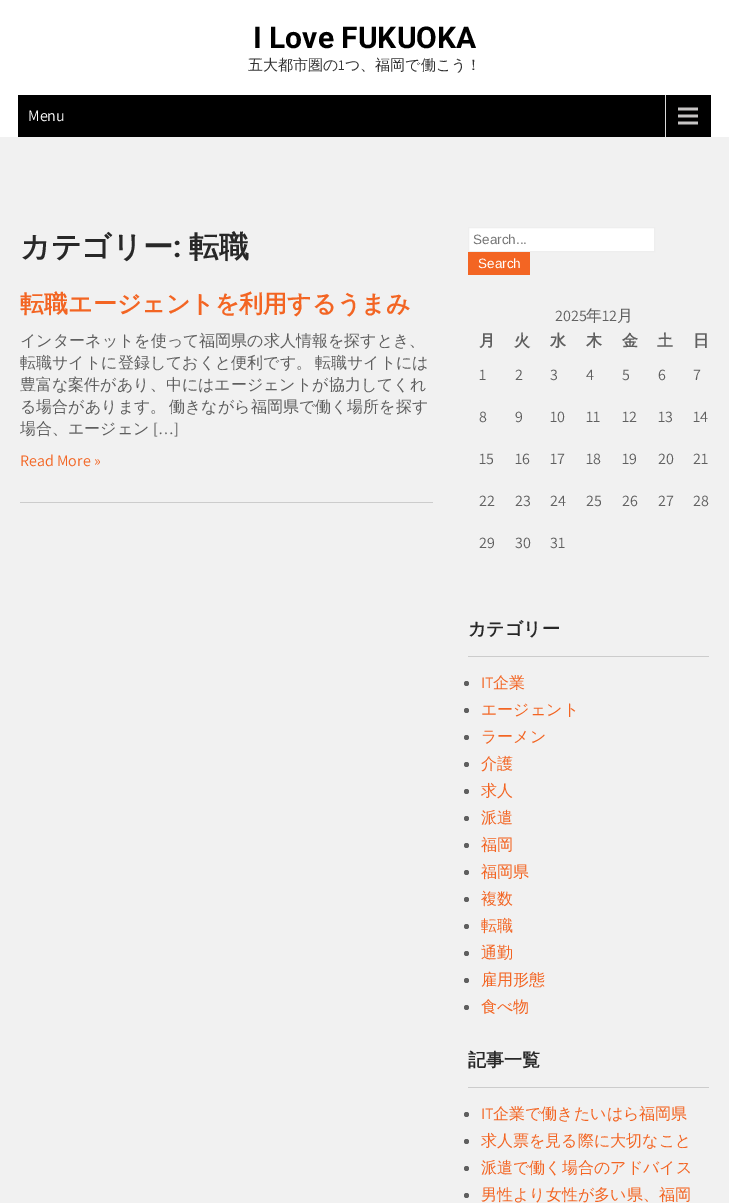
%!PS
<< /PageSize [729 1203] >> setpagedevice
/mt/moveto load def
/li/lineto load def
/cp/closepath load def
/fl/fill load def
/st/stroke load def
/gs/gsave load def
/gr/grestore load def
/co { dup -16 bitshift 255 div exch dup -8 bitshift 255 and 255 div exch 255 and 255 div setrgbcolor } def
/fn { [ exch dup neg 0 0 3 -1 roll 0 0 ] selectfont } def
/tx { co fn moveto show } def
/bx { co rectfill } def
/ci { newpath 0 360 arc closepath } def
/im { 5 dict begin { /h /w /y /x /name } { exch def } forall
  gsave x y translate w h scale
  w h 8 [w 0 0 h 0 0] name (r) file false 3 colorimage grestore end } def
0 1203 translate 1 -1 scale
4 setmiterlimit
0 0 729 1203 16#F1F1F1 bx
0 0 729 137 16#FFFFFF bx
18 95 693 42 16#000000 bx
(media/1.raw) 665 95 33 42 im
20 502 413 1 16#CCCCCC bx
16#FFFFFF co
468.5 227.5 mt 654.5 227.5 li 654.5 251.5 li 468.5 251.5 li cp gs fl gr
16#EEEEEE co
st
468 252 62 23 16#F36523 bx
468 656 241 1 16#CCCCCC bx
16#5F5F5F co
466.5 683.5 2.5 ci fl
466.5 710.5 2.5 ci fl
466.5 737.5 2.5 ci fl
466.5 764.5 2.5 ci fl
466.5 791.5 2.5 ci fl
466.5 818.5 2.5 ci fl
466.5 845.5 2.5 ci fl
466.5 872.5 2.5 ci fl
466.5 899.5 2.5 ci fl
466.5 926.5 2.5 ci fl
466.5 953.5 2.5 ci fl
466.5 980.5 2.5 ci fl
466.5 1007.5 2.5 ci fl
468 1087 241 1 16#CCCCCC bx
16#5F5F5F co
466.5 1114.5 2.5 ci fl
466.5 1141.5 2.5 ci fl
466.5 1168.5 2.5 ci fl
466.5 1195.5 2.5 ci fl
(I Love FUKUOKA) 253 48 /Roboto-Bold 30 16#000000 tx
(五大都市圏の) 248 70 /WenQuanYiZenHei-Medium 15 16#323232 tx
(1) 338 70 /Assistant-Regular 15 16#323232 tx
(つ、福岡で働こう！) 345 70 /WenQuanYiZenHei-Medium 15 16#323232 tx
(Menu) 28 121 /Assistant-Regular 16 16#FFFFFF tx
(カテゴリー) 20 257 /WenQuanYiZenHei-Bold 30 16#282828 tx
(:) 173 257 /Roboto-Bold 30 16#282828 tx
(転職) 189 257 /WenQuanYiZenHei-Bold 30 16#282828 tx
(転職エージェントを利用するうまみ) 20 312 /WenQuanYiZenHei-Bold 24 16#F36523 tx
(インターネットを使って福岡県の求人情報を探すとき、) 20 346 /WenQuanYiZenHei-Medium 16 16#5F5F5F tx
20 368 mt -2 0 32 (転職サイトに登録しておくと便利です。 転職サイトには) widthshow
(豊富な案件があり、中にはエージェントが協力してくれ) 20 390 /WenQuanYiZenHei-Medium 16 16#5F5F5F tx
20 412 mt -2 0 32 (る場合があります。 働きながら福岡県で働く場所を探す) widthshow
(場合、エージェン) 20 434 /WenQuanYiZenHei-Medium 16 16#5F5F5F tx
([…]) 153 434 /Assistant-Regular 16 16#5F5F5F tx
(Read More ») 20 466 /Assistant-Regular 16 16#F36523 tx
(Search...) 473 244 /LiberationSans-Regular 13.5 16#757575 tx
(Search) 478 268 /LiberationSans-Regular 13.5 16#FFFFFF tx
(2025) 555 321 /Assistant-Regular 16 16#5F5F5F tx
(年) 586 321 /WenQuanYiZenHei-Medium 16 16#5F5F5F tx
(12) 602 321 /Assistant-Regular 16 16#5F5F5F tx
(月) 617 321 /WenQuanYiZenHei-Medium 16 16#5F5F5F tx
(月) 479 346 /WenQuanYiZenHei-Bold 16 16#5F5F5F tx
(火) 514 346 /WenQuanYiZenHei-Bold 16 16#5F5F5F tx
(水) 550 346 /WenQuanYiZenHei-Bold 16 16#5F5F5F tx
(木) 586 346 /WenQuanYiZenHei-Bold 16 16#5F5F5F tx
(金) 622 346 /WenQuanYiZenHei-Bold 16 16#5F5F5F tx
(土) 657 346 /WenQuanYiZenHei-Bold 16 16#5F5F5F tx
(日) 693 346 /WenQuanYiZenHei-Bold 16 16#5F5F5F tx
(1) 479 380 /Assistant-Regular 16 16#5F5F5F tx
(2) 515 380 /Assistant-Regular 16 16#5F5F5F tx
(3) 550 380 /Assistant-Regular 16 16#5F5F5F tx
(4) 586 380 /Assistant-Regular 16 16#5F5F5F tx
(5) 622 380 /Assistant-Regular 16 16#5F5F5F tx
(6) 658 380 /Assistant-Regular 16 16#5F5F5F tx
(7) 693 380 /Assistant-Regular 16 16#5F5F5F tx
(8) 479 422 /Assistant-Regular 16 16#5F5F5F tx
(9) 515 422 /Assistant-Regular 16 16#5F5F5F tx
(10) 550 422 /Assistant-Regular 16 16#5F5F5F tx
(11) 586 422 /Assistant-Regular 16 16#5F5F5F tx
(12) 622 422 /Assistant-Regular 16 16#5F5F5F tx
(13) 658 422 /Assistant-Regular 16 16#5F5F5F tx
(14) 693 422 /Assistant-Regular 16 16#5F5F5F tx
(15) 479 464 /Assistant-Regular 16 16#5F5F5F tx
(16) 515 464 /Assistant-Regular 16 16#5F5F5F tx
(17) 550 464 /Assistant-Regular 16 16#5F5F5F tx
(18) 586 464 /Assistant-Regular 16 16#5F5F5F tx
(19) 622 464 /Assistant-Regular 16 16#5F5F5F tx
(20) 658 464 /Assistant-Regular 16 16#5F5F5F tx
(21) 693 464 /Assistant-Regular 16 16#5F5F5F tx
(22) 479 506 /Assistant-Regular 16 16#5F5F5F tx
(23) 515 506 /Assistant-Regular 16 16#5F5F5F tx
(24) 550 506 /Assistant-Regular 16 16#5F5F5F tx
(25) 586 506 /Assistant-Regular 16 16#5F5F5F tx
(26) 622 506 /Assistant-Regular 16 16#5F5F5F tx
(27) 658 506 /Assistant-Regular 16 16#5F5F5F tx
(28) 693 506 /Assistant-Regular 16 16#5F5F5F tx
(29) 479 548 /Assistant-Regular 16 16#5F5F5F tx
(30) 515 548 /Assistant-Regular 16 16#5F5F5F tx
(31) 550 548 /Assistant-Regular 16 16#5F5F5F tx
(カテゴリー) 468 635 /WenQuanYiZenHei-Bold 18 16#282828 tx
(IT) 481 688 /Assistant-Regular 16 16#F36523 tx
(企業) 493 688 /WenQuanYiZenHei-Medium 16 16#F36523 tx
(エージェント) 481 715 /WenQuanYiZenHei-Medium 16 16#F36523 tx
(ラーメン) 481 742 /WenQuanYiZenHei-Medium 16 16#F36523 tx
(介護) 481 769 /WenQuanYiZenHei-Medium 16 16#F36523 tx
(求人) 481 796 /WenQuanYiZenHei-Medium 16 16#F36523 tx
(派遣) 481 823 /WenQuanYiZenHei-Medium 16 16#F36523 tx
(福岡) 481 850 /WenQuanYiZenHei-Medium 16 16#F36523 tx
(福岡県) 481 877 /WenQuanYiZenHei-Medium 16 16#F36523 tx
(複数) 481 904 /WenQuanYiZenHei-Medium 16 16#F36523 tx
(転職) 481 931 /WenQuanYiZenHei-Medium 16 16#F36523 tx
(通勤) 481 958 /WenQuanYiZenHei-Medium 16 16#F36523 tx
(雇用形態) 481 985 /WenQuanYiZenHei-Medium 16 16#F36523 tx
(食べ物) 481 1012 /WenQuanYiZenHei-Medium 16 16#F36523 tx
(記事一覧) 468 1066 /WenQuanYiZenHei-Bold 18 16#282828 tx
(IT) 481 1119 /Assistant-Regular 16 16#F36523 tx
(企業で働きたいはら福岡県) 493 1119 /WenQuanYiZenHei-Medium 16 16#F36523 tx
(求人票を見る際に大切なこと) 481 1146 /WenQuanYiZenHei-Medium 16 16#F36523 tx
(派遣で働く場合のアドバイス) 481 1173 /WenQuanYiZenHei-Medium 16 16#F36523 tx
(男性より女性が多い県、福岡) 481 1200 /WenQuanYiZenHei-Medium 16 16#F36523 tx
showpage
